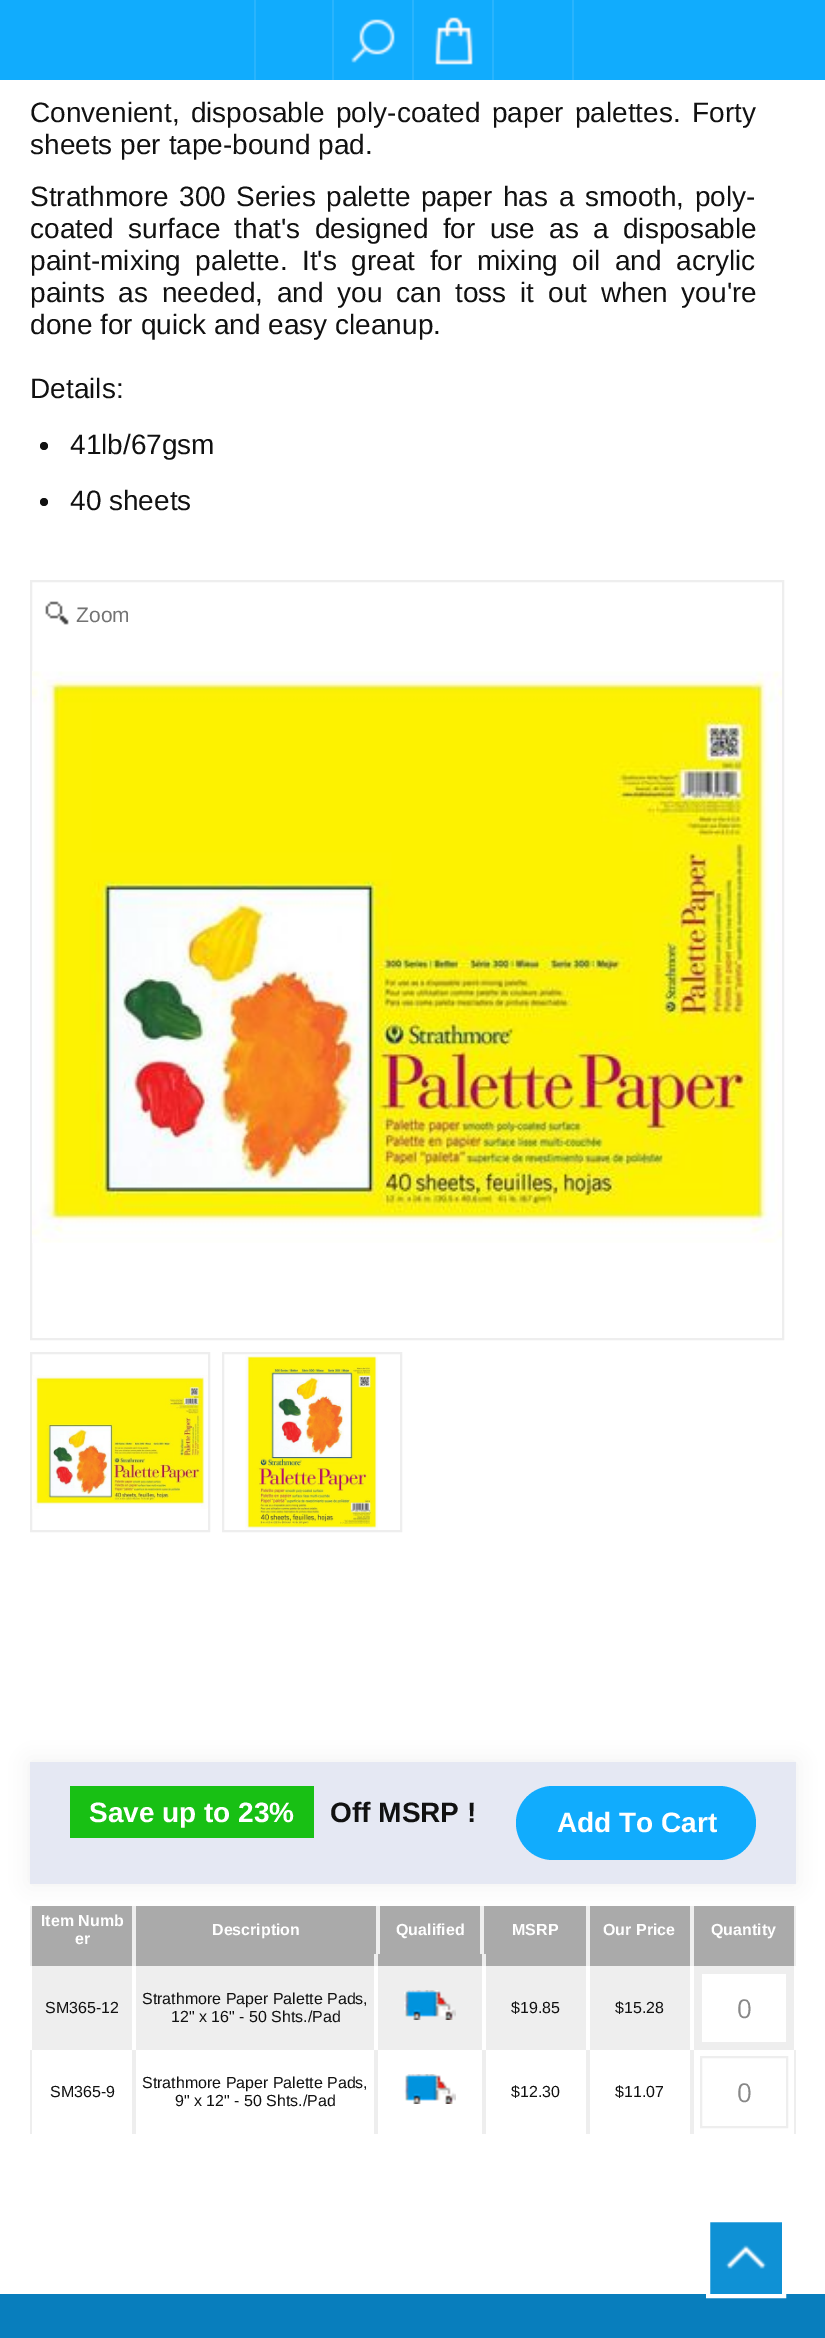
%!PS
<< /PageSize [825 2338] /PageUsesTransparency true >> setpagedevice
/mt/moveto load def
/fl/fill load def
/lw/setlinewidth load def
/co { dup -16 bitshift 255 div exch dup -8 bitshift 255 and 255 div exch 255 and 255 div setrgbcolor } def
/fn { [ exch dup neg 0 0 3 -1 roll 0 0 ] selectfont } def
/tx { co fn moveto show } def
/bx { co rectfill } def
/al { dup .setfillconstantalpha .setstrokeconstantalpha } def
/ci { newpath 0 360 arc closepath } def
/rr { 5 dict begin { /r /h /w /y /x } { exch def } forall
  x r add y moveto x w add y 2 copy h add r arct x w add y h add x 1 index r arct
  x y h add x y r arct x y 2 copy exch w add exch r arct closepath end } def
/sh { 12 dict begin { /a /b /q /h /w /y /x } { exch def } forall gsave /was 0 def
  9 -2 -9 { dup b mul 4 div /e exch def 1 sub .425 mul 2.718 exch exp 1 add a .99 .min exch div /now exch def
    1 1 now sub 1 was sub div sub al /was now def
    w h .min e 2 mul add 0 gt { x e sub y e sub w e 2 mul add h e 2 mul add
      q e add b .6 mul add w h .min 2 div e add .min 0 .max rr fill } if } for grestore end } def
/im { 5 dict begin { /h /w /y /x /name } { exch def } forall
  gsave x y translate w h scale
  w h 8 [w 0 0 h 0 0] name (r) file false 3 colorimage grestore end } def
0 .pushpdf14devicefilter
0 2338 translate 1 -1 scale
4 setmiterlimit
0 0 825 2338 16#FFFFFF bx
0 0 825 80 16#11ACFD bx
332 0 2 80 16#29B4FD bx
254 0 2 80 16#29B4FD bx
(media/1.raw) 351 19 44 44 im
412 0 2 80 16#29B4FD bx
(media/2.raw) 435 17 38 48 im
492 0 2 80 16#29B4FD bx
572 0 2 80 16#29B4FD bx
16#111111 co
44 446 4 ci fl
44 502 4 ci fl
16#EEEEEE co
2 lw
31 581 752 758 rectstroke
(media/3.raw) 45 601 24 24 im
(media/4.raw) 32 671 750 572 im
31 1353 178 178 rectstroke
(media/5.raw) 32 1375 176 134 im
223 1353 178 178 rectstroke
(media/6.raw) 245 1355 133 175 im
30 1762 766 122 0 10 1 sh
30 1762 766 122 16#E5E8F3 bx
70 1786 244 52 16#18C014 bx
16#11ACFD co
516 1786 240 74 37 rr fl
32 1906 762 60 16#AAAAAA bx
132 1906 4 48 16#EEEEEE bx
30 1906 2 60 16#EEEEEE bx
376 1906 4 48 16#EEEEEE bx
480 1906 4 48 16#EEEEEE bx
586 1906 4 48 16#EEEEEE bx
690 1906 4 48 16#EEEEEE bx
794 1906 2 60 16#EEEEEE bx
132 1954 4 12 16#EEEEEE bx
374 1954 4 12 16#EEEEEE bx
482 1954 4 12 16#EEEEEE bx
586 1954 4 12 16#EEEEEE bx
690 1954 4 12 16#EEEEEE bx
32 1966 762 84 16#EEEEEE bx
132 1966 4 84 16#FFFFFF bx
374 1966 4 84 16#FFFFFF bx
482 1966 4 84 16#FFFFFF bx
(media/7.raw) 404 1990 52 30 im
586 1966 4 84 16#FFFFFF bx
690 1966 4 84 16#FFFFFF bx
702 1974 84 68 16#FFFFFF bx
132 2050 4 84 16#EEEEEE bx
30 2050 2 84 16#EEEEEE bx
374 2050 4 84 16#EEEEEE bx
482 2050 4 84 16#EEEEEE bx
(media/8.raw) 404 2074 52 30 im
586 2050 4 84 16#EEEEEE bx
690 2050 4 84 16#EEEEEE bx
794 2050 2 84 16#EEEEEE bx
701 2057 86 70 rectstroke
0 2294 825 44 16#087EBD bx
710 2222 72 72 16#0F91D5 bx
(media/9.raw) 725 2245 42 24 im
16#FFFFFF co
4 lw
708 2220 76 76 rectstroke
/LiberationSans-Regular 28 fn
16#111111 co
30 122 mt 3.5 0 32 (Convenient, disposable poly-coated paper palettes. Forty) widthshow
(sheets per tape-bound pad.) 30 154 /LiberationSans-Regular 28 16#111111 tx
30 206 mt 2.75 0 32 (Strathmore 300 Series palette paper has a smooth, poly-) widthshow
30 238 mt 6.5 0 32 (coated surface that's designed for use as a disposable) widthshow
30 270 mt 6.75 0 32 (paint-mixing palette. It's great for mixing oil and acrylic) widthshow
30 302 mt 6 0 32 (paints as needed, and you can toss it out when you're) widthshow
(done for quick and easy cleanup.) 30 334 /LiberationSans-Regular 28 16#111111 tx
(Details:) 30 398 /LiberationSans-Regular 28 16#111111 tx
(41lb/67gsm) 70 454 /LiberationSans-Regular 28 16#111111 tx
(40 sheets) 70 510 /LiberationSans-Regular 28 16#111111 tx
(Zoom) 76 622 /LiberationSans-Regular 21 16#737373 tx
(Save up to 23%) 89 1822 /LiberationSans-Bold 28 16#FFFFFF tx
(Off MSRP !) 330 1822 /LiberationSans-Bold 28 16#111111 tx
(Add To Cart) 557 1832 /LiberationSans-Bold 28 16#FFFFFF tx
(Item Numb) 41 1926 /LiberationSans-Bold 16 16#FFFFFF tx
(er) 75 1944 /LiberationSans-Bold 16 16#FFFFFF tx
(Description) 212 1935 /LiberationSans-Bold 16 16#FFFFFF tx
(Qualified) 396 1935 /LiberationSans-Bold 16 16#FFFFFF tx
(MSRP) 512 1935 /LiberationSans-Bold 16 16#FFFFFF tx
(Our Price) 603 1935 /LiberationSans-Bold 16 16#FFFFFF tx
(Quantity) 711 1935 /LiberationSans-Bold 16 16#FFFFFF tx
(SM365-12) 45 2013 /LiberationSans-Regular 16 16#111111 tx
(Strathmore Paper Palette Pads,) 142 2004 /LiberationSans-Regular 16 16#111111 tx
(12" x 16" - 50 Shts./Pad) 171 2022 /LiberationSans-Regular 16 16#111111 tx
($19.85) 511 2013 /LiberationSans-Regular 16 16#111111 tx
($15.28) 615 2013 /LiberationSans-Regular 16 16#111111 tx
(0) 737 2018 /OpenSans-Regular 26 16#888888 tx
(SM365-9) 50 2097 /LiberationSans-Regular 16 16#111111 tx
(Strathmore Paper Palette Pads,) 142 2088 /LiberationSans-Regular 16 16#111111 tx
(9" x 12" - 50 Shts./Pad) 175 2106 /LiberationSans-Regular 16 16#111111 tx
($12.30) 511 2097 /LiberationSans-Regular 16 16#111111 tx
($11.07) 615 2097 /LiberationSans-Regular 16 16#111111 tx
(0) 737 2102 /OpenSans-Regular 26 16#888888 tx
.poppdf14devicefilter showpage
